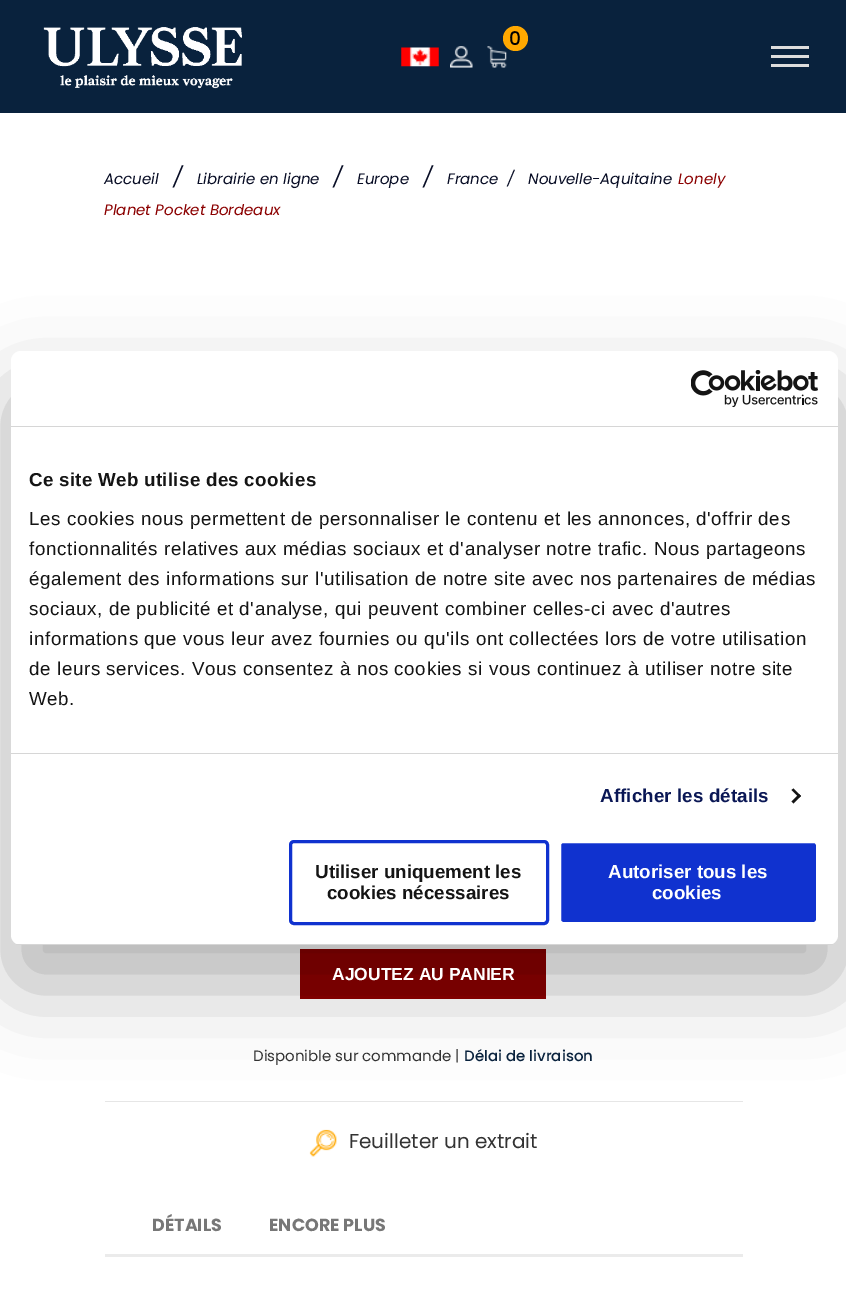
%!PS
<< /PageSize [846 1295] /PageUsesTransparency true >> setpagedevice
/mt/moveto load def
/li/lineto load def
/cp/closepath load def
/fl/fill load def
/st/stroke load def
/gs/gsave load def
/gr/grestore load def
/lw/setlinewidth load def
/co { dup -16 bitshift 255 div exch dup -8 bitshift 255 and 255 div exch 255 and 255 div setrgbcolor } def
/fn { [ exch dup neg 0 0 3 -1 roll 0 0 ] selectfont } def
/tx { co fn moveto show } def
/bx { co rectfill } def
/al { dup .setfillconstantalpha .setstrokeconstantalpha } def
/ci { newpath 0 360 arc closepath } def
/rr { 5 dict begin { /r /h /w /y /x } { exch def } forall
  x r add y moveto x w add y 2 copy h add r arct x w add y h add x 1 index r arct
  x y h add x y r arct x y 2 copy exch w add exch r arct closepath end } def
/sh { 12 dict begin { /a /b /q /h /w /y /x } { exch def } forall gsave /was 0 def
  9 -2 -9 { dup b mul 4 div /e exch def 1 sub .425 mul 2.718 exch exp 1 add a .99 .min exch div /now exch def
    1 1 now sub 1 was sub div sub al /was now def
    w h .min e 2 mul add 0 gt { x e sub y e sub w e 2 mul add h e 2 mul add
      q e add b .6 mul add w h .min 2 div e add .min 0 .max rr fill } if } for grestore end } def
/im { 5 dict begin { /h /w /y /x /name } { exch def } forall
  gsave x y translate w h scale
  w h 8 [w 0 0 h 0 0] name (r) file false 3 colorimage grestore end } def
0 .pushpdf14devicefilter
0 1295 translate 1 -1 scale
4 setmiterlimit
0 0 846 1295 16#FFFFFF bx
0 0 846 113 16#09223D bx
(media/1.raw) 43 27 199 62 im
(media/2.raw) 487 46 20 22 im
16#FFA800 co
515.5 38.5 12.5 ci fl
(media/3.raw) 401 47 38 20 im
(media/4.raw) 450 46 23 22 im
771 46 38 3 16#DDDDDD bx
771 55 38 3 16#DDDDDD bx
771 64 38 3 16#DDDDDD bx
300 949 246 50 16#8B0000 bx
105 1101 638 1 16#E6E6E6 bx
(media/5.raw) 309 1129 28 28 im
105 1254 638 3 16#EBEBEB bx
16#000000 co
11 391 827 594 10 42.5 .3 sh
16#FFFFFF co
11 351 827 594 10 rr fl
11 426 827 1 16#D6D6D6 bx
(media/6.raw) 691 370 127 38 im
11 753 827 1 16#D6D6D6 bx
16#141414 co
793.5 788.5 mt 801 796 li 799 797.5 li 791.5 790 li cp fl
799 794 mt 801 796 li 793.5 803.5 li 791.5 801.5 li cp fl
gs
11 351 827 594 10 rr clip newpath
11 944 827 1 16#D6D6D6 bx
gr
16#1032CF co
3 lw
290.5 841.5 257 82 3.5 rr st
559.5 841.5 258 82 3.5 rr gs fl gr
16#FFFFFF co
st
(0) 509 45 /Poppins-Medium 18.75 16#000000 tx
(Accueil) 104 184 /Poppins-Italic 15 16#080D25 tx
(/) 173 184 /Poppins-Italic 20 16#080D25 tx
(Librairie en ligne) 197 184 /Poppins-Italic 15 16#080D25 tx
(/) 333 184 /Poppins-Italic 20 16#080D25 tx
(Europe) 357 184 /Poppins-Italic 15 16#080D25 tx
(/) 423 184 /Poppins-Italic 20 16#080D25 tx
(France) 447 184 /Poppins-Italic 15 16#080D25 tx
(/) 507 184 /Poppins-Italic 15 16#080D25 tx
(Nouvelle-Aquitaine) 528 184 /Poppins-Italic 15 16#080D25 tx
(Lonely) 678 184 /Poppins-Italic 15 16#8B0000 tx
(Planet Pocket Bordeaux) 104 215 /Poppins-Italic 15 16#8B0000 tx
(AJOUTEZ AU PANIER) 332 980 /LiberationSans-Bold 17.5 16#FFFFFF tx
(Disponible sur commande |) 253 1061 /Poppins-Regular 15 16#333333 tx
(Délai de livraison) 464 1061 /Poppins-Medium 15 16#09223D tx
(Feuilleter un extrait) 349 1148 /Poppins-Regular 20 16#333333 tx
(DÉTAILS) 152 1231 /Poppins-Bold 17.5 16#777777 tx
(ENCORE PLUS) 269 1231 /Poppins-Bold 17.5 16#777777 tx
/LiberationSans-Bold 18.75 fn
16#141414 co
29 486 mt .3 0 (Ce site Web utilise des cookies) ashow
/LiberationSans-Regular 18.75 fn
29 525 mt .62 0 (Les cookies nous permettent de personnaliser le contenu et les annonces, d'offrir des) ashow
29 555 mt .62 0 (fonctionnalités relatives aux médias sociaux et d'analyser notre trafic. Nous partageons) ashow
29 585 mt .62 0 (également des informations sur l'utilisation de notre site avec nos partenaires de médias) ashow
29 615 mt .62 0 (sociaux, de publicité et d'analyse, qui peuvent combiner celles-ci avec d'autres) ashow
29 645 mt .62 0 (informations que vous leur avez fournies ou qu'ils ont collectées lors de votre utilisation) ashow
29 675 mt .62 0 (de leurs services. Vous consentez à nos cookies si vous continuez à utiliser notre site) ashow
29 705 mt .62 0 (Web.) ashow
/LiberationSans-Bold 18.75 fn
16#0A1755 co
600 802 mt .1 0 (Afficher les détails) ashow
(Utiliser uniquement les) 315 878 /LiberationSans-Bold 18.75 16#141414 tx
(cookies nécessaires) 327 899 /LiberationSans-Bold 18.75 16#141414 tx
(Autoriser tous les) 608 878 /LiberationSans-Bold 18.75 16#FFFFFF tx
(cookies) 652 899 /LiberationSans-Bold 18.75 16#FFFFFF tx
.poppdf14devicefilter showpage
